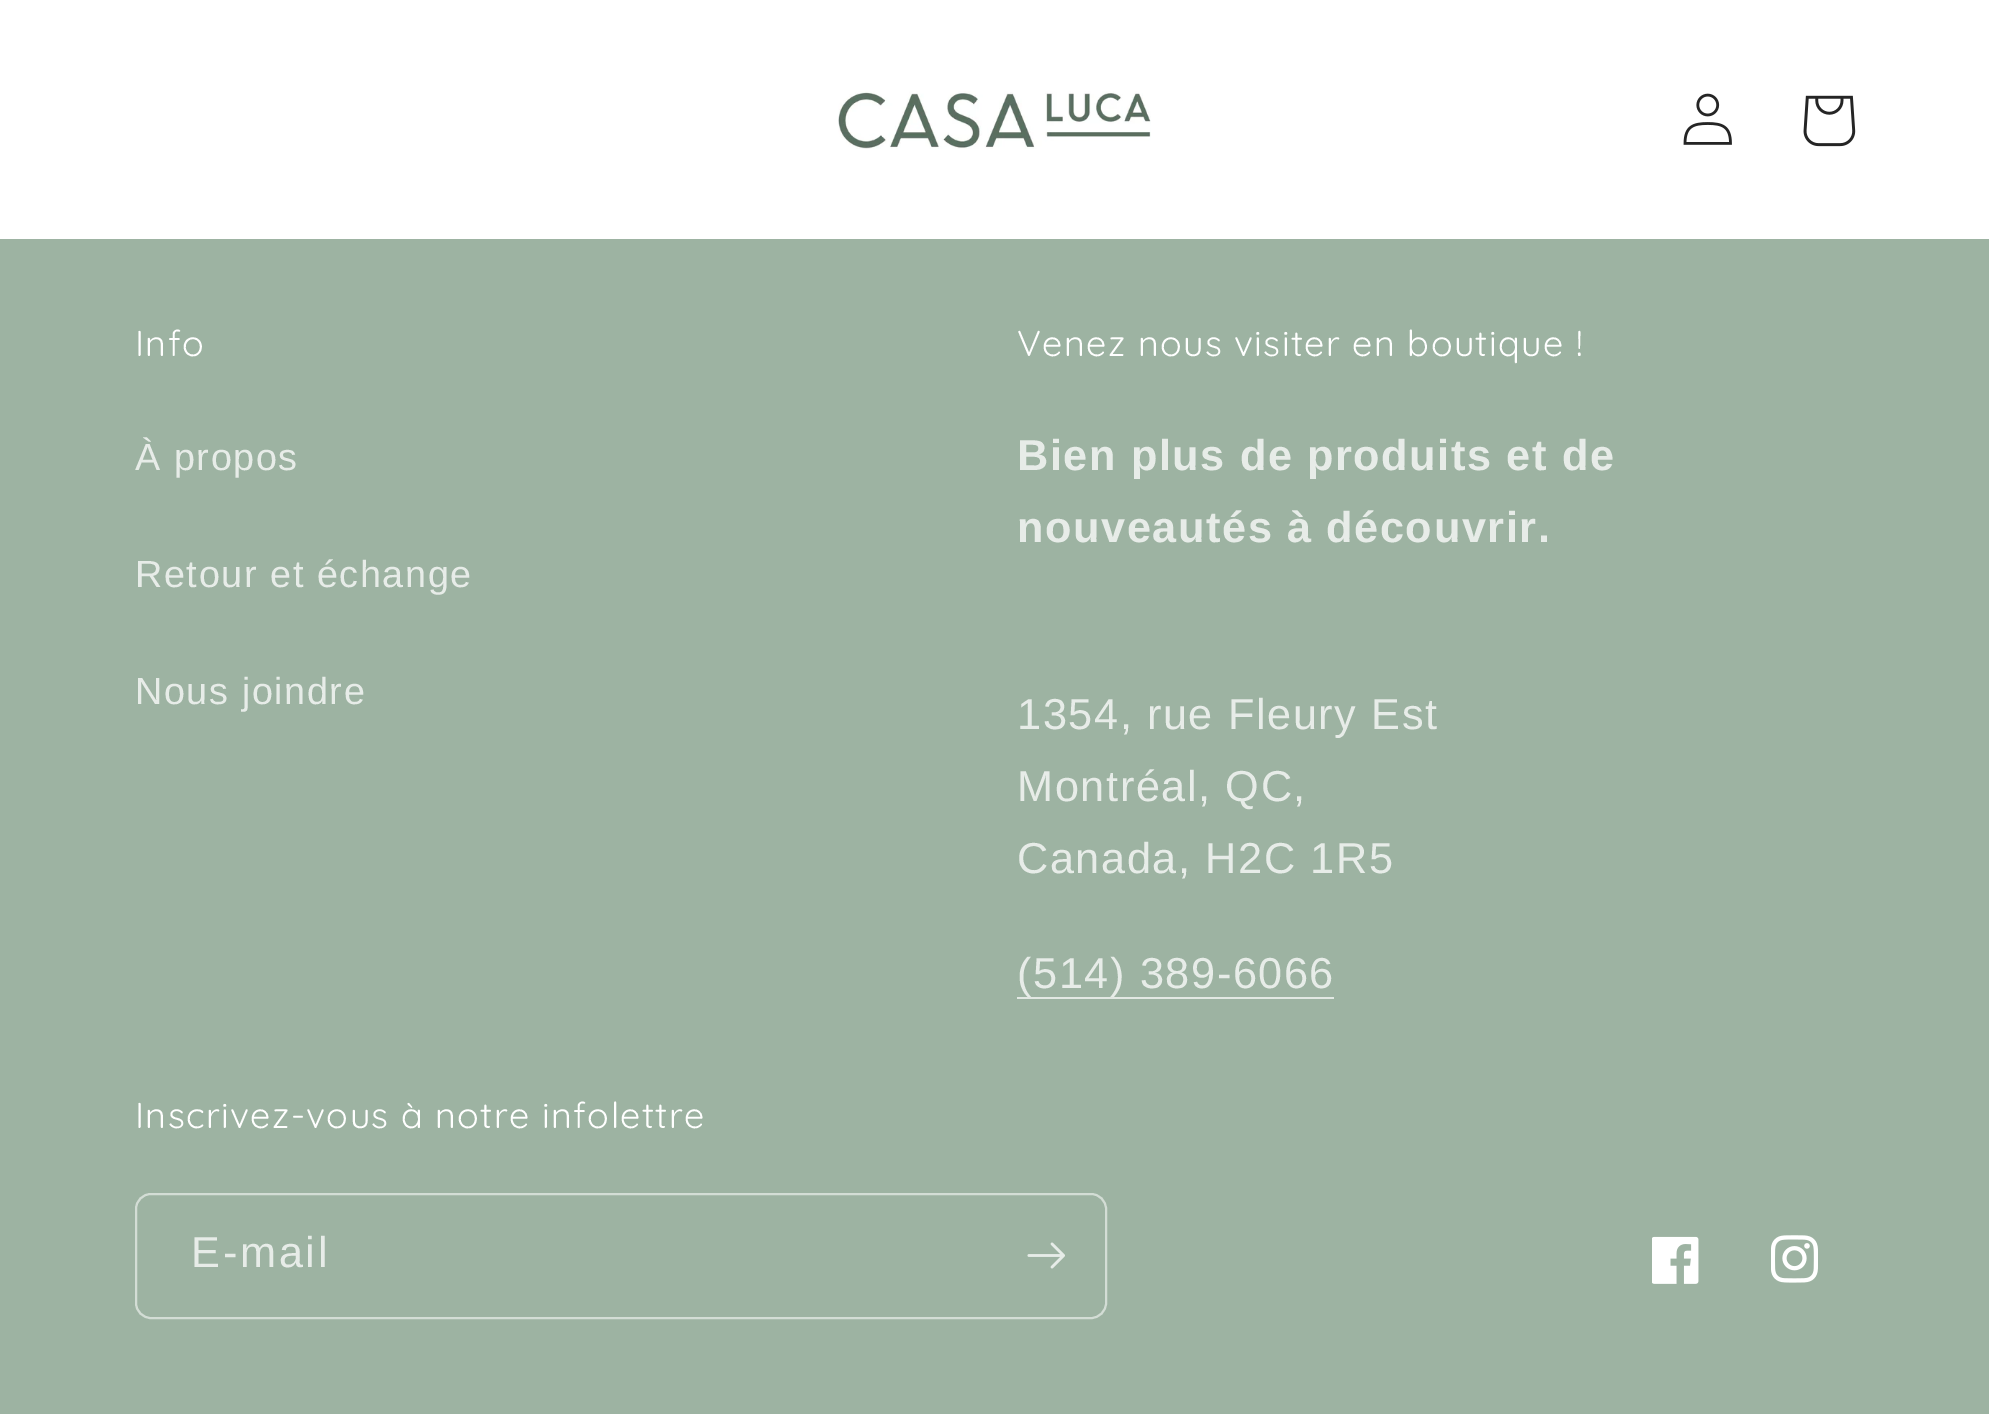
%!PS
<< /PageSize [1989 1414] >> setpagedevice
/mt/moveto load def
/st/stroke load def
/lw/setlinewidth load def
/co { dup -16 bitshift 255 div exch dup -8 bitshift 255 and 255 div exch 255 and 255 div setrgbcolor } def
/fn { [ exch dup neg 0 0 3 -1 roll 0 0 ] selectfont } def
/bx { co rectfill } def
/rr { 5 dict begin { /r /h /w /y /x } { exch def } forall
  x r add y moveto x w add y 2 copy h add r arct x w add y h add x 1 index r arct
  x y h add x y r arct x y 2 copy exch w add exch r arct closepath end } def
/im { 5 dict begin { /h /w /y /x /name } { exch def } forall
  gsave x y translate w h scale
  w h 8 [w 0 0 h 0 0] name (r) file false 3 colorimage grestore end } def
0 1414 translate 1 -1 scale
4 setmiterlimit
0 0 1989 1414 16#FFFFFF bx
(media/1.raw) 838 91 313 58 im
(media/2.raw) 1683 93 49 52 im
(media/3.raw) 1803 95 53 52 im
0 239 1989 1175 16#9DB3A2 bx
1017 997 317 2 16#E2E8E3 bx
16#D3DDD5 co
2 lw
136 1194 970 124 15 rr st
(media/4.raw) 1027 1242 38 27 im
(media/5.raw) 1652 1236 47 48 im
(media/6.raw) 1771 1235 47 48 im
/Quicksand-Regular 36 fn
16#FFFFFF co
135 356 mt 1.35 0 (Info) ashow
/LiberationSans-Regular 37.75 fn
16#E7ECE8 co
135 470 mt 1.6 0 (À propos) ashow
135 587 mt 1.6 0 (Retour et échange) ashow
135 704 mt 1.6 0 (Nous joindre) ashow
/Quicksand-Regular 36 fn
16#FFFFFF co
1017 356 mt 1.35 0 (Venez nous visiter en boutique !) ashow
/LiberationSans-Bold 43.25 fn
16#E7ECE8 co
1017 470 mt 1.6 0 (Bien plus de produits et de) ashow
1017 542 mt 1.6 0 (nouveautés à découvrir.) ashow
/LiberationSans-Regular 43.25 fn
1017 729 mt 1.6 0 (1354, rue Fleury Est) ashow
1017 801 mt 1.6 0 (Montréal, QC,) ashow
1017 873 mt 1.6 0 (Canada, H2C 1R5) ashow
1017 988 mt 1.6 0 (\(514\) 389-6066) ashow
/Quicksand-Regular 36 fn
16#FFFFFF co
135 1128 mt 1.35 0 (Inscrivez-vous à notre infolettre) ashow
/LiberationSans-Regular 43.25 fn
16#E7ECE8 co
191 1267 mt 2.75 0 (E-mail) ashow
showpage
